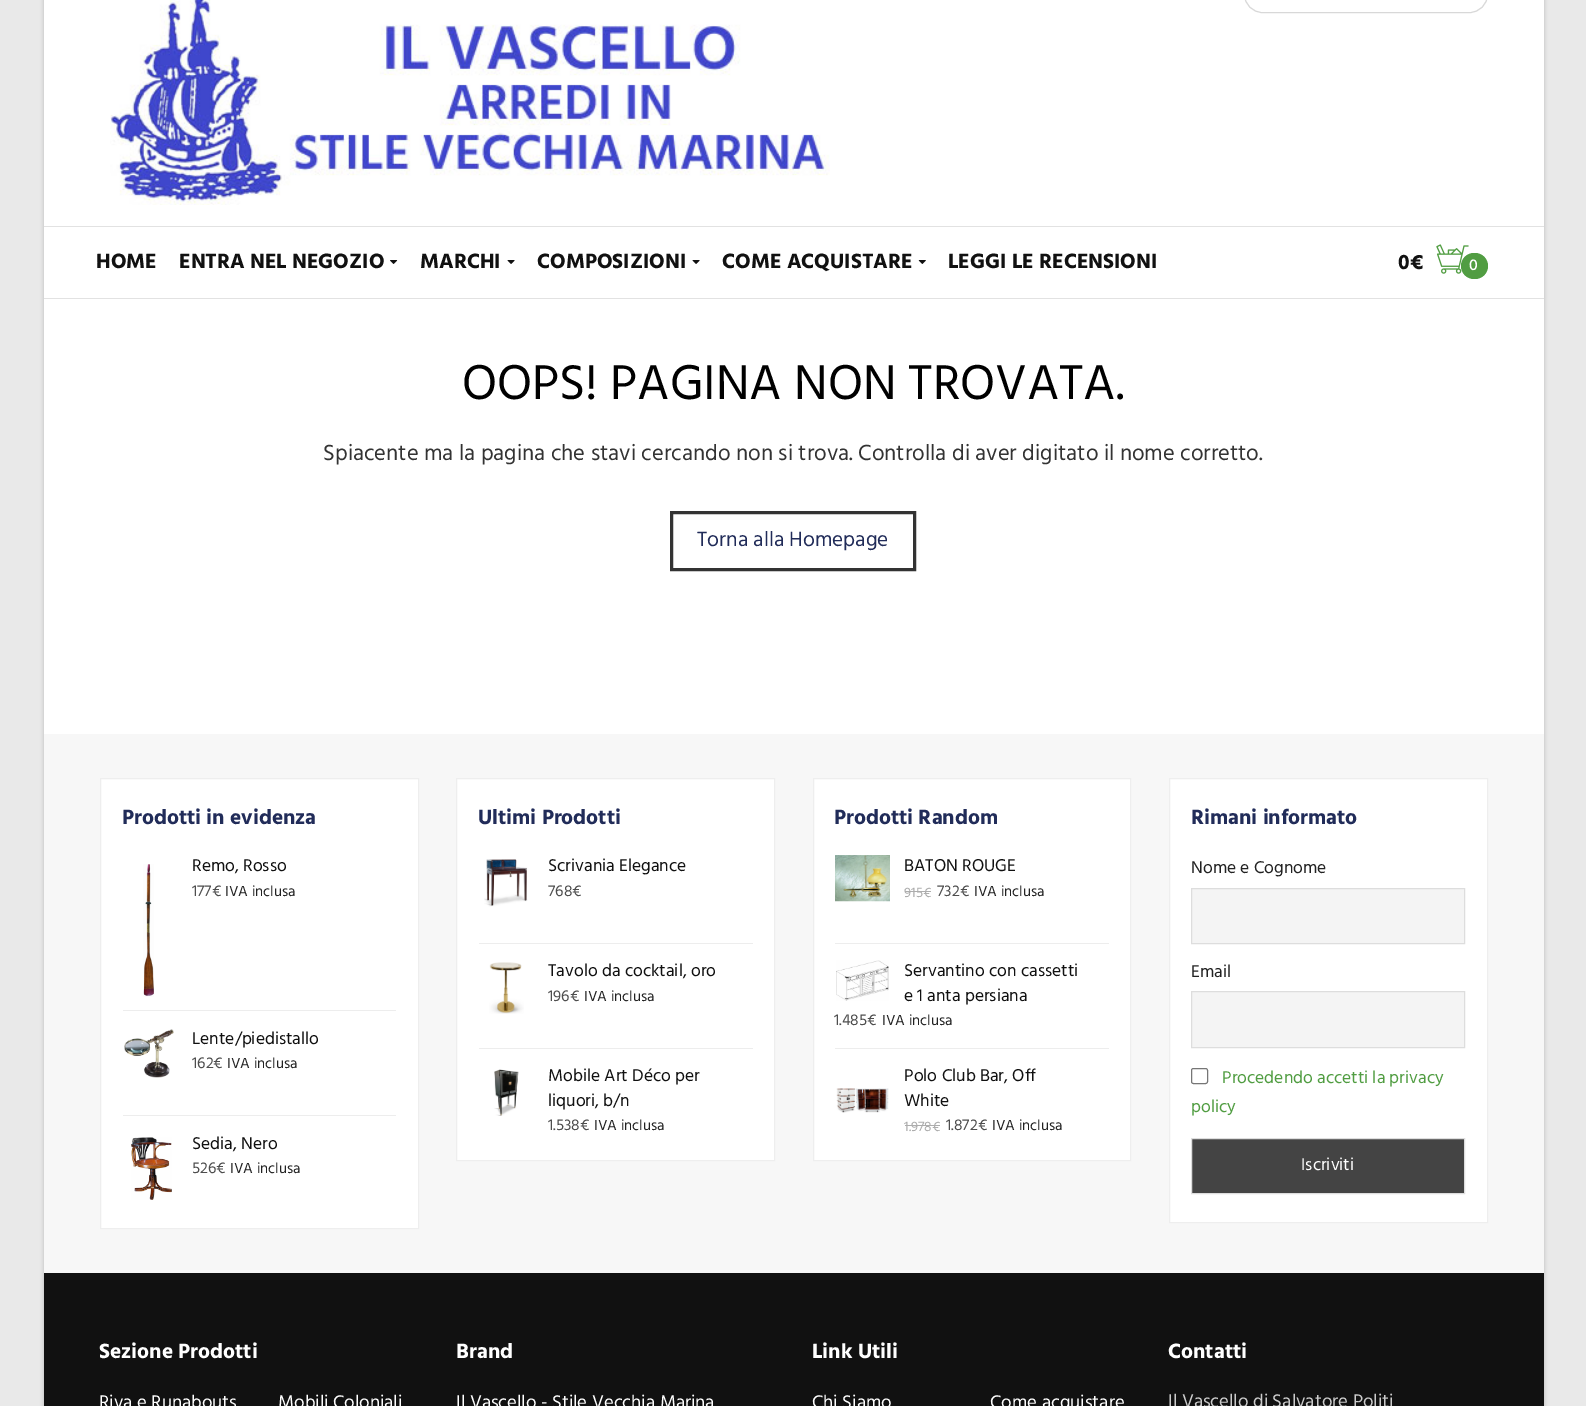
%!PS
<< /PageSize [1586 1406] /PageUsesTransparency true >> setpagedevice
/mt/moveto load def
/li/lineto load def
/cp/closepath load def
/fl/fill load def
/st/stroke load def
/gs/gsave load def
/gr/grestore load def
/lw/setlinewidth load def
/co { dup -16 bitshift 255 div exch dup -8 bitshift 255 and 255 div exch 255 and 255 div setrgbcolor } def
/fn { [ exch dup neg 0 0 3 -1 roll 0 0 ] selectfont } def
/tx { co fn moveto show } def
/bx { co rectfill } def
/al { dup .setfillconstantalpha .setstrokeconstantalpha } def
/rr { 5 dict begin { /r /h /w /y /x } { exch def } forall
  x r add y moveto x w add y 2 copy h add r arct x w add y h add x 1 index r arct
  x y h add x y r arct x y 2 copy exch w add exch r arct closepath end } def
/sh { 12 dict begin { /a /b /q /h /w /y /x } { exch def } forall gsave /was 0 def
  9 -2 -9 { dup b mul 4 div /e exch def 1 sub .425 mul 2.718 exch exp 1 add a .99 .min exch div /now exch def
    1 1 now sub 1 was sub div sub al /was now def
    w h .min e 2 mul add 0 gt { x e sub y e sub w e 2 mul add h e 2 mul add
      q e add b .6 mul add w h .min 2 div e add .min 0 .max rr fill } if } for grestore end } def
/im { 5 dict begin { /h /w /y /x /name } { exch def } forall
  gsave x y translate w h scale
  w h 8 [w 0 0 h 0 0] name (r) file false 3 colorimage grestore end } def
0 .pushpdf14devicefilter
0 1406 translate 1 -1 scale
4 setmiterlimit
0 0 1586 1406 16#E9E9E9 bx
16#000000 co
44 -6 1500 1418 0 2 .22 sh
44 0 1500 734 16#FFFFFF bx
16#D8D8D8 co
1244.5 -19.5 243 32 18 rr st
(media/1.raw) 110 0 720 205 im
44 226 1500 1 16#E2E2E2 bx
44 298 1500 1 16#E2E2E2 bx
(media/2.raw) 390 260 8 4 im
(media/3.raw) 507 260 8 4 im
(media/3.raw) 692 260 8 4 im
(media/4.raw) 918 260 8 4 im
(media/5.raw) 1436 244 33 30 im
16#519D42 co
1461 253 27 26 13 rr fl
16#333333 co
3 lw
671.5 512.5 243 57 rectstroke
44 734 1500 539 16#F7F7F7 bx
16#FFFFFF co
100.5 778.5 mt 418.5 778.5 li 418.5 1228.5 li 100.5 1228.5 li cp gs fl gr
16#EEEEEE co
1 lw
st
123 1010 273 1 16#EDEDED bx
(media/6.raw) 143 864 11 133 im
123 1115 273 1 16#EDEDED bx
(media/7.raw) 124 1029 50 49 im
(media/8.raw) 131 1137 41 63 im
16#FFFFFF co
456.5 778.5 mt 774.5 778.5 li 774.5 1160.5 li 456.5 1160.5 li cp gs fl gr
16#EEEEEE co
st
479 943 274 1 16#EDEDED bx
(media/9.raw) 484 859 44 48 im
479 1048 274 1 16#EDEDED bx
(media/10.raw) 489 962 35 52 im
(media/11.raw) 494 1069 25 47 im
16#FFFFFF co
813.5 778.5 mt 1130.5 778.5 li 1130.5 1160.5 li 813.5 1160.5 li cp gs fl gr
16#EEEEEE co
st
835 943 274 1 16#EDEDED bx
(media/12.raw) 835 855 55 47 im
905 891 26 1 16#ADADAD bx
835 1048 274 1 16#EDEDED bx
(media/13.raw) 836 960 53 41 im
(media/14.raw) 836 1088 53 25 im
905 1125 35 1 16#ADADAD bx
16#FFFFFF co
1169.5 778.5 mt 1487.5 778.5 li 1487.5 1222.5 li 1169.5 1222.5 li cp gs fl gr
16#EEEEEE co
st
16#F4F4F4 co
1191.5 888.5 mt 1464.5 888.5 li 1464.5 943.5 li 1191.5 943.5 li cp gs fl gr
16#DDDDDD co
st
16#F4F4F4 co
1191.5 991.5 mt 1464.5 991.5 li 1464.5 1047.5 li 1191.5 1047.5 li cp gs fl gr
16#DDDDDD co
st
16#767676 co
1191.5 1068.5 16 15 2 rr st
16#444444 co
1191.5 1138.5 mt 1464.5 1138.5 li 1464.5 1193.5 li 1191.5 1193.5 li cp gs fl gr
16#DDDDDD co
st
44 1273 1500 133 16#111111 bx
(HOME) 96 268 /Hind-Bold 21.25 16#111111 tx
(ENTRA NEL NEGOZIO) 179 268 /Hind-Bold 21.25 16#111111 tx
(MARCHI) 420 268 /Hind-Bold 21.25 16#111111 tx
(COMPOSIZIONI) 537 268 /Hind-Bold 21.25 16#111111 tx
(COME ACQUISTARE) 722 268 /Hind-Bold 21.25 16#111111 tx
(LEGGI LE RECENSIONI) 948 268 /Hind-Bold 21.25 16#111111 tx
(0€) 1398 269 /Hind-Bold 21.25 16#111111 tx
(0) 1469 270 /Hind-Medium 16 16#FFFFFF tx
(OOPS! PAGINA NON TROVATA.) 462 399 /Hind-Regular 50 16#000000 tx
(Spiacente ma la pagina che stavi cercando non si trova. Controlla di aver digitato il nome corretto.) 323 460 /Hind-Regular 22.5 16#333333 tx
(Torna alla Homepage) 697 546 /Hind-Regular 21.25 16#212C59 tx
(Prodotti in evidenza) 122 824 /Hind-Bold 21.25 16#212C59 tx
(Remo, Rosso) 192 871 /Hind-Regular 17.5 16#111111 tx
(177€) 192 896 /Hind-Regular 16 16#4E4E4E tx
(IVA inclusa) 225 896 /Hind-Regular 15 16#222222 tx
(Lente/piedistallo) 192 1044 /Hind-Regular 17.5 16#111111 tx
(162€) 192 1068 /Hind-Regular 16 16#4E4E4E tx
(IVA inclusa) 227 1068 /Hind-Regular 15 16#222222 tx
(Sedia, Nero) 192 1149 /Hind-Regular 17.5 16#111111 tx
(526€) 192 1173 /Hind-Regular 16 16#4E4E4E tx
(IVA inclusa) 230 1173 /Hind-Regular 15 16#222222 tx
(Ultimi Prodotti) 478 824 /Hind-Bold 21.25 16#212C59 tx
(Scrivania Elegance) 548 871 /Hind-Regular 17.5 16#111111 tx
(768€) 548 896 /Hind-Regular 16 16#4E4E4E tx
(Tavolo da cocktail, oro) 548 976 /Hind-Regular 17.5 16#111111 tx
(196€) 548 1001 /Hind-Regular 16 16#4E4E4E tx
(IVA inclusa) 584 1001 /Hind-Regular 15 16#222222 tx
(Mobile Art Déco per) 548 1081 /Hind-Regular 17.5 16#111111 tx
(liquori, b/n) 548 1106 /Hind-Regular 17.5 16#111111 tx
(1.538€) 548 1130 /Hind-Regular 16 16#4E4E4E tx
(IVA inclusa) 594 1130 /Hind-Regular 15 16#222222 tx
(Prodotti Random) 834 824 /Hind-Bold 21.25 16#212C59 tx
(BATON ROUGE) 904 871 /Hind-Regular 17.5 16#111111 tx
(915€) 904 897 /Hind-Regular 14 16#ADADAD tx
(732€) 937 896 /Hind-Regular 16 16#4E4E4E tx
(IVA inclusa) 974 896 /Hind-Regular 15 16#222222 tx
(Servantino con cassetti) 904 976 /Hind-Regular 17.5 16#111111 tx
(e 1 anta persiana) 904 1001 /Hind-Regular 17.5 16#111111 tx
(1.485€) 834 1025 /Hind-Regular 16 16#4E4E4E tx
(IVA inclusa) 882 1025 /Hind-Regular 15 16#222222 tx
(Polo Club Bar, Off) 904 1081 /Hind-Regular 17.5 16#111111 tx
(White) 904 1106 /Hind-Regular 17.5 16#111111 tx
(1.978€) 904 1131 /Hind-Regular 14 16#ADADAD tx
(1.872€) 946 1130 /Hind-Regular 16 16#4E4E4E tx
(IVA inclusa) 992 1130 /Hind-Regular 15 16#222222 tx
(Rimani informato) 1191 824 /Hind-Bold 21.25 16#212C59 tx
(Nome e Cognome) 1191 873 /Hind-Regular 17.5 16#222222 tx
(Email) 1191 977 /Hind-Regular 17.5 16#222222 tx
(Procedendo accetti la privacy) 1222 1083 /Hind-Regular 17.5 16#519D42 tx
(policy) 1191 1112 /Hind-Regular 17.5 16#519D42 tx
(Iscriviti) 1301 1170 /Hind-Regular 17.5 16#FFFFFF tx
(Sezione Prodotti) 99 1358 /Hind-Bold 21.25 16#FFFFFF tx
(Riva e Runabouts) 99 1408 /Hind-Regular 18.75 16#FFFFFF tx
(Mobili Coloniali) 278 1408 /Hind-Regular 18.75 16#FFFFFF tx
(Brand) 456 1358 /Hind-Bold 21.25 16#FFFFFF tx
(Il Vascello - Stile Vecchia Marina) 456 1408 /Hind-Regular 18.75 16#FFFFFF tx
(Link Utili) 812 1358 /Hind-Bold 21.25 16#FFFFFF tx
(Chi Siamo) 812 1408 /Hind-Regular 18.75 16#FFFFFF tx
(Come acquistare) 990 1408 /Hind-Regular 18.75 16#FFFFFF tx
(Contatti) 1168 1358 /Hind-Bold 21.25 16#FFFFFF tx
(Il Vascello di Salvatore Politi) 1168 1407 /Hind-Regular 18.75 16#CCCCCC tx
.poppdf14devicefilter showpage
